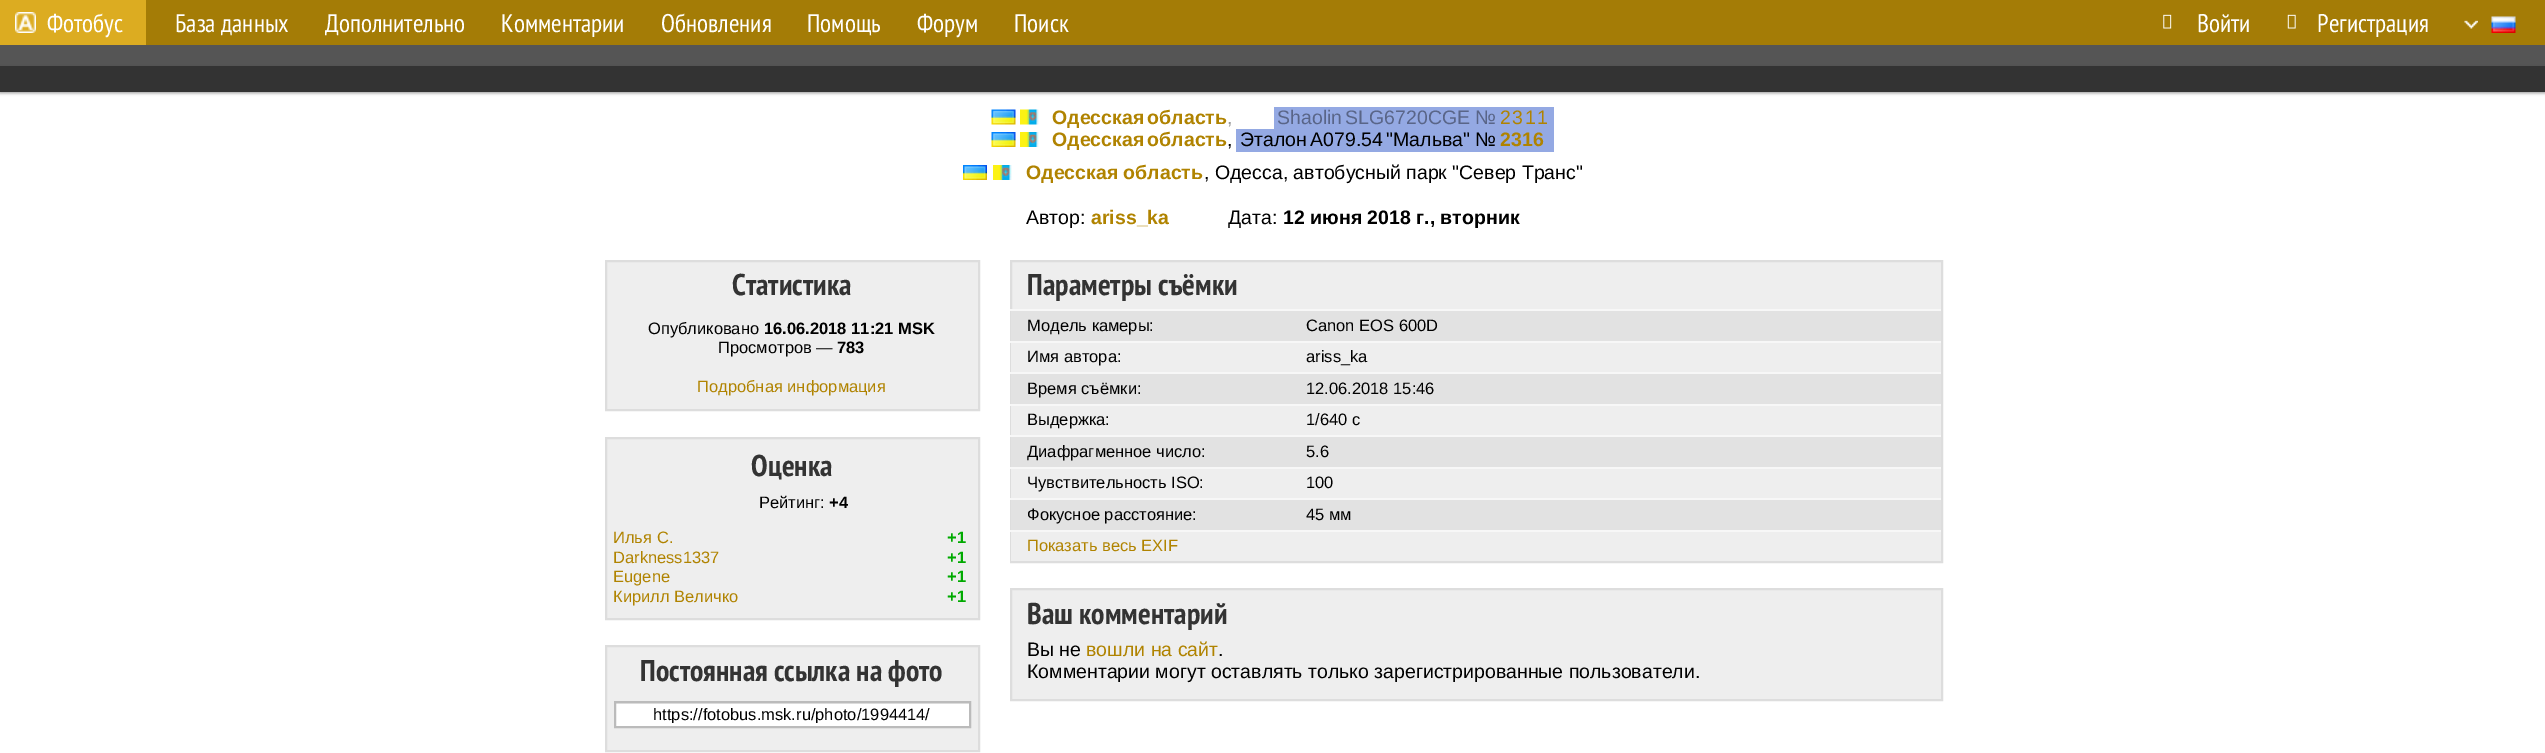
%!PS
<< /PageSize [2545 753] /PageUsesTransparency true >> setpagedevice
/mt/moveto load def
/li/lineto load def
/cp/closepath load def
/fl/fill load def
/st/stroke load def
/gs/gsave load def
/gr/grestore load def
/lw/setlinewidth load def
/co { dup -16 bitshift 255 div exch dup -8 bitshift 255 and 255 div exch 255 and 255 div setrgbcolor } def
/fn { [ exch dup neg 0 0 3 -1 roll 0 0 ] selectfont } def
/tx { co fn moveto show } def
/bx { co rectfill } def
/al { dup .setfillconstantalpha .setstrokeconstantalpha } def
/rr { 5 dict begin { /r /h /w /y /x } { exch def } forall
  x r add y moveto x w add y 2 copy h add r arct x w add y h add x 1 index r arct
  x y h add x y r arct x y 2 copy exch w add exch r arct closepath end } def
/sh { 12 dict begin { /a /b /q /h /w /y /x } { exch def } forall gsave /was 0 def
  9 -2 -9 { dup b mul 4 div /e exch def 1 sub .425 mul 2.718 exch exp 1 add a .99 .min exch div /now exch def
    1 1 now sub 1 was sub div sub al /was now def
    w h .min e 2 mul add 0 gt { x e sub y e sub w e 2 mul add h e 2 mul add
      q e add b .6 mul add w h .min 2 div e add .min 0 .max rr fill } if } for grestore end } def
/im { 5 dict begin { /h /w /y /x /name } { exch def } forall
  gsave x y translate w h scale
  w h 8 [w 0 0 h 0 0] name (r) file false 3 colorimage grestore end } def
0 .pushpdf14devicefilter
0 753 translate 1 -1 scale
4 setmiterlimit
0 0 2545 753 16#FFFFFF bx
146 0 2399 45 16#A47C06 bx
0 0 146 45 16#DCAC21 bx
(media/1.raw) 15 12 21 21 im
(media/2.raw) 2163 14 9 15 im
(media/3.raw) 2287 14 9 15 im
(media/4.raw) 2464 20 14 9 im
(media/5.raw) 2491 16 25 17 im
0 45 2545 21 16#555555 bx
16#000000 co
0 68 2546 25 0 1.5 .4 sh
0 66 2545 26 16#333333 bx
(media/6.raw) 991 109 25 16 im
(media/7.raw) 1020 109 19 16 im
1274 107 198 22 16#94A9E3 bx
1472 107 82 45 16#94A9E3 bx
(media/8.raw) 991 132 25 15 im
(media/9.raw) 1020 132 19 15 im
1236 129 236 23 16#94A9E3 bx
(media/10.raw) 963 165 24 15 im
(media/9.raw) 993 165 19 15 im
16#EEEEEE co
606 261 mt 979 261 li 979 410 li 606 410 li cp gs fl gr
16#DDDDDD co
2 lw
st
16#EEEEEE co
606 438 mt 979 438 li 979 619 li 606 619 li cp gs fl gr
16#DDDDDD co
st
16#EEEEEE co
606 646 mt 979 646 li 979 751 li 606 751 li cp gs fl gr
16#DDDDDD co
st
616 704 353 22 16#FFFFFF bx
615 703 354 1 16#E6E6E6 bx
16#BBBBBB co
615 702 355 25 rectstroke
1012 262 929 47 16#EEEEEE bx
16#DDDDDD co
1011 261 931 301 rectstroke
1011 311 930 30 16#E2E2E2 bx
1010 309 931 2 16#F7F7F7 bx
1011 343 930 29 16#EEEEEE bx
1010 341 931 2 16#F7F7F7 bx
1011 374 930 30 16#E2E2E2 bx
1010 372 931 2 16#F7F7F7 bx
1011 406 930 29 16#EEEEEE bx
1010 404 931 2 16#F7F7F7 bx
1011 437 930 30 16#E2E2E2 bx
1010 435 931 2 16#F7F7F7 bx
1011 469 930 29 16#EEEEEE bx
1010 467 931 2 16#F7F7F7 bx
1011 500 930 30 16#E2E2E2 bx
1010 498 931 2 16#F7F7F7 bx
1011 532 930 29 16#EEEEEE bx
1010 530 931 2 16#F7F7F7 bx
16#EEEEEE co
1011 589 mt 1942 589 li 1942 700 li 1011 700 li cp gs fl gr
16#DDDDDD co
st
(Фотобус) 47 32 /PTSansNarrow-Regular 25.5 16#FFFFFF tx
(База данных) 175 32 /PTSansNarrow-Regular 25.5 16#FFFFFF tx
(Дополнительно) 325 32 /PTSansNarrow-Regular 25.5 16#FFFFFF tx
(Комментарии) 501 32 /PTSansNarrow-Regular 25.5 16#FFFFFF tx
(Обновления) 661 32 /PTSansNarrow-Regular 25.5 16#FFFFFF tx
(Помощь) 807 32 /PTSansNarrow-Regular 25.5 16#FFFFFF tx
(Форум) 917 32 /PTSansNarrow-Regular 25.5 16#FFFFFF tx
(Поиск) 1014 32 /PTSansNarrow-Regular 25.5 16#FFFFFF tx
(Войти) 2197 32 /PTSansNarrow-Regular 25.5 16#FFFFFF tx
(Регистрация) 2317 32 /PTSansNarrow-Regular 25.5 16#FFFFFF tx
/LiberationSans-Bold 19.5 fn
16#B08300 co
1052 124 mt -2 0 32 (Одесская область) widthshow
(,) 1227 124 /LiberationSans-Regular 19.5 16#999999 tx
16#596588 co
1277 124 mt -2 0 32 (Shaolin SLG6720CGE) widthshow
(№) 1475 124 /LiberationSans-Regular 19.5 16#596588 tx
16#B08300 co
1500 124 mt 1.5 0 (2311) ashow
/LiberationSans-Bold 19.5 fn
1052 146 mt -2 0 32 (Одесская область) widthshow
(,) 1227 146 /LiberationSans-Regular 19.5 16#000000 tx
1240 146 mt -2 0 32 (Эталон А079.54 "Мальва") widthshow
(№) 1475 146 /LiberationSans-Regular 19.5 16#000000 tx
(2316) 1500 146 /LiberationSans-Bold 19.5 16#B08300 tx
(Одесская область) 1026 179 /LiberationSans-Bold 19.5 16#B08300 tx
(, Одесса, автобусный парк "Север Транс") 1204 179 /LiberationSans-Regular 19.5 16#000000 tx
(Автор:) 1026 224 /LiberationSans-Regular 19.5 16#000000 tx
(ariss_ka) 1091 224 /LiberationSans-Bold 19.5 16#B08300 tx
(Дата:) 1228 224 /LiberationSans-Regular 19.5 16#000000 tx
(12 июня 2018 г., вторник) 1283 224 /LiberationSans-Bold 19.5 16#000000 tx
(Статистика) 732 295 /PTSansNarrow-Bold 30 16#333333 tx
(Опубликовано) 648 334 /LiberationSans-Regular 16.5 16#000000 tx
(16.06.2018 11:21 MSK) 764 334 /LiberationSans-Bold 16.5 16#000000 tx
(Просмотров —) 718 353 /LiberationSans-Regular 16.5 16#000000 tx
(783) 837 353 /LiberationSans-Bold 16.5 16#000000 tx
(Подробная информация) 697 392 /LiberationSans-Regular 16.5 16#B08300 tx
(Оценка) 751 476 /PTSansNarrow-Bold 30 16#333333 tx
(Рейтинг:) 759 508 /LiberationSans-Regular 16.5 16#000000 tx
(+4) 829 508 /LiberationSans-Bold 16.5 16#000000 tx
(Илья С.) 613 543 /LiberationSans-Regular 16.5 16#B08300 tx
(+1) 947 543 /LiberationSans-Bold 16.5 16#00AA00 tx
(Darkness1337) 613 563 /LiberationSans-Regular 16.5 16#B08300 tx
(+1) 947 563 /LiberationSans-Bold 16.5 16#00AA00 tx
(Eugene) 613 582 /LiberationSans-Regular 16.5 16#B08300 tx
(+1) 947 582 /LiberationSans-Bold 16.5 16#00AA00 tx
(Кирилл Величко) 613 602 /LiberationSans-Regular 16.5 16#B08300 tx
(+1) 947 602 /LiberationSans-Bold 16.5 16#00AA00 tx
(Постоянная ссылка на фото) 640 681 /PTSansNarrow-Bold 30 16#333333 tx
gs
620 705 345 18 rectclip
(https://fotobus.msk.ru/photo/1994414/) 653 720 /LiberationSans-Regular 16.5 16#000000 tx
gr
(Параметры съёмки) 1027 295 /PTSansNarrow-Bold 30 16#333333 tx
(Модель камеры:) 1027 331 /LiberationSans-Regular 16.5 16#000000 tx
(Canon EOS 600D) 1306 331 /LiberationSans-Regular 16.5 16#000000 tx
(Имя автора:) 1027 362 /LiberationSans-Regular 16.5 16#000000 tx
(ariss_ka) 1306 362 /LiberationSans-Regular 16.5 16#000000 tx
(Время съёмки:) 1027 394 /LiberationSans-Regular 16.5 16#000000 tx
(12.06.2018 15:46) 1306 394 /LiberationSans-Regular 16.5 16#000000 tx
(Выдержка:) 1027 425 /LiberationSans-Regular 16.5 16#000000 tx
(1/640 с) 1306 425 /LiberationSans-Regular 16.5 16#000000 tx
(Диафрагменное число:) 1027 457 /LiberationSans-Regular 16.5 16#000000 tx
(5.6) 1306 457 /LiberationSans-Regular 16.5 16#000000 tx
(Чувствительность ISO:) 1027 488 /LiberationSans-Regular 16.5 16#000000 tx
(100) 1306 488 /LiberationSans-Regular 16.5 16#000000 tx
(Фокусное расстояние:) 1027 520 /LiberationSans-Regular 16.5 16#000000 tx
(45 мм) 1306 520 /LiberationSans-Regular 16.5 16#000000 tx
(Показать весь EXIF) 1027 551 /LiberationSans-Regular 16.5 16#B08300 tx
(Ваш комментарий) 1027 624 /PTSansNarrow-Bold 30 16#333333 tx
(Вы не) 1027 656 /LiberationSans-Regular 19.5 16#000000 tx
(вошли на сайт) 1086 656 /LiberationSans-Regular 19.5 16#B08300 tx
(.) 1218 656 /LiberationSans-Regular 19.5 16#000000 tx
(Комментарии могут оставлять только зарегистрированные пользователи.) 1027 678 /LiberationSans-Regular 19.5 16#000000 tx
.poppdf14devicefilter showpage
